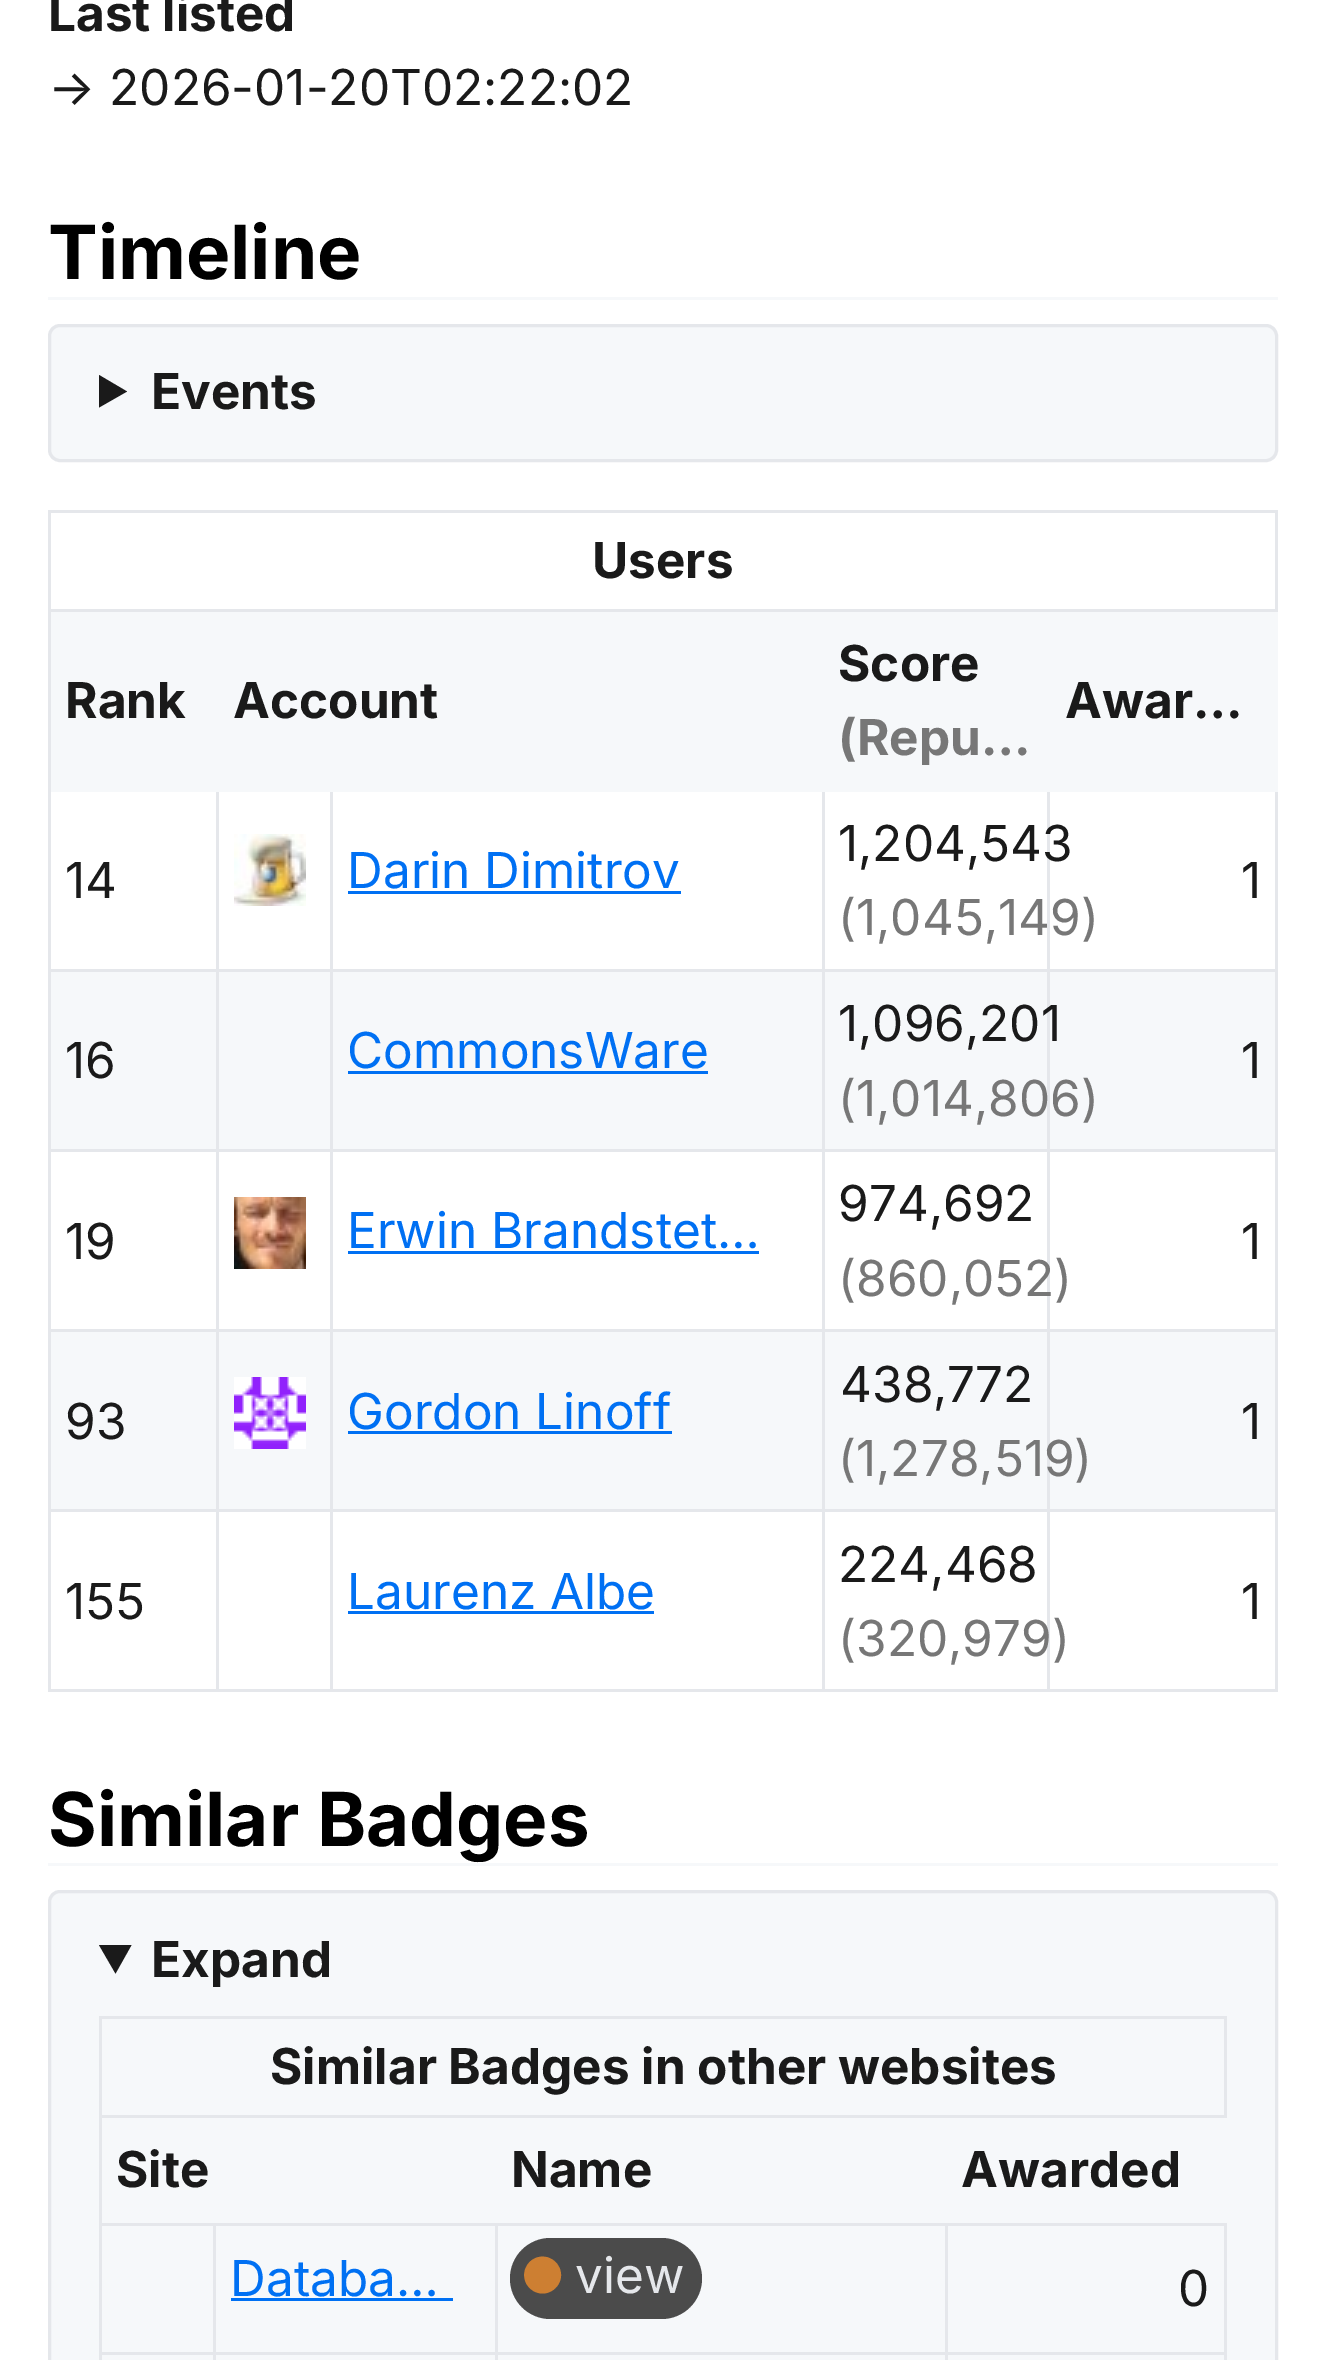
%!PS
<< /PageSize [1326 2360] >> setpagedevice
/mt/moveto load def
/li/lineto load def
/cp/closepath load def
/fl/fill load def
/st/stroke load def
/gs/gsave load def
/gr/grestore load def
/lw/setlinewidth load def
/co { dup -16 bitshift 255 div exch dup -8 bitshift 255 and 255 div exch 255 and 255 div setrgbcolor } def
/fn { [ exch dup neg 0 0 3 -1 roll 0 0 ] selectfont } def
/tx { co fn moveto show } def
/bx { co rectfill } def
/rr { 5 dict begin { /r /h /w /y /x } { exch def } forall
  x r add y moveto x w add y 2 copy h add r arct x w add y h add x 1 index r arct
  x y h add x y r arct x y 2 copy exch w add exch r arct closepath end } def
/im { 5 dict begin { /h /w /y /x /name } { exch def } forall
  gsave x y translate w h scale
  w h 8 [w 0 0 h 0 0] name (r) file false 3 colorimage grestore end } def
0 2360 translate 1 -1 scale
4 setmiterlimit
0 0 1326 2360 16#FFFFFF bx
48 297 1230 3 16#F6F8FA bx
49.5 325.5 1227 135 10.5 rr gs fl gr
16#E5E7EB co
3 lw
st
16#1A1A1A co
99 375 mt 127 391.5 li 99 407.5 li cp fl
48 510 1230 3 16#E5E7EB bx
1275 510 3 99 16#E5E7EB bx
48 510 3 99 16#E5E7EB bx
48 609 1230 3 16#E5E7EB bx
1047 969 231 3 16#E5E7EB bx
51 972 1224 177 16#F6F8FA bx
1047 1149 231 3 16#E5E7EB bx
1047 1329 231 3 16#E5E7EB bx
51 1332 1224 177 16#F6F8FA bx
1047 1509 231 3 16#E5E7EB bx
1275 1509 3 183 16#E5E7EB bx
1047 1689 231 3 16#E5E7EB bx
1047 1509 3 183 16#E5E7EB bx
822 1509 228 3 16#E5E7EB bx
1047 1329 3 183 16#E5E7EB bx
822 1329 228 3 16#E5E7EB bx
1047 1149 3 183 16#E5E7EB bx
822 1149 228 3 16#E5E7EB bx
1047 969 3 183 16#E5E7EB bx
822 969 228 3 16#E5E7EB bx
822 1689 228 3 16#E5E7EB bx
822 1509 3 183 16#E5E7EB bx
330 1509 495 3 16#E5E7EB bx
822 1329 3 183 16#E5E7EB bx
330 1329 495 3 16#E5E7EB bx
822 1149 3 183 16#E5E7EB bx
330 1149 495 3 16#E5E7EB bx
822 969 3 183 16#E5E7EB bx
330 969 495 3 16#E5E7EB bx
330 1689 495 3 16#E5E7EB bx
330 1509 3 183 16#E5E7EB bx
216 1509 117 3 16#E5E7EB bx
330 1329 3 183 16#E5E7EB bx
216 1329 117 3 16#E5E7EB bx
330 1149 3 183 16#E5E7EB bx
216 1149 117 3 16#E5E7EB bx
330 969 3 183 16#E5E7EB bx
216 969 117 3 16#E5E7EB bx
216 1689 117 3 16#E5E7EB bx
216 1509 3 183 16#E5E7EB bx
48 1509 171 3 16#E5E7EB bx
216 1329 3 183 16#E5E7EB bx
48 1329 171 3 16#E5E7EB bx
216 1149 3 183 16#E5E7EB bx
48 1149 171 3 16#E5E7EB bx
216 969 3 183 16#E5E7EB bx
48 969 171 3 16#E5E7EB bx
48 1689 171 3 16#E5E7EB bx
48 1509 3 183 16#E5E7EB bx
48 1329 3 183 16#E5E7EB bx
48 1149 3 183 16#E5E7EB bx
48 789 3 363 16#E5E7EB bx
48 609 3 183 16#E5E7EB bx
216 789 3 183 16#E5E7EB bx
330 789 3 183 16#E5E7EB bx
822 789 3 183 16#E5E7EB bx
1047 789 3 183 16#E5E7EB bx
1275 1329 3 183 16#E5E7EB bx
1275 1149 3 183 16#E5E7EB bx
1275 789 3 363 16#E5E7EB bx
51 612 1227 180 16#F6F8FA bx
(media/1.raw) 234 834 72 72 im
348 891 333 3 16#0070F3 bx
348 1071 360 3 16#0070F3 bx
(media/2.raw) 234 1197 72 72 im
348 1251 411 3 16#0070F3 bx
(media/3.raw) 234 1377 72 72 im
348 1431 324 3 16#0070F3 bx
348 1611 306 3 16#0070F3 bx
48 1863 1230 3 16#F6F8FA bx
49.5 1891.5 1227 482 10.5 rr gs fl gr
16#E5E7EB co
st
16#1A1A1A co
99 1945 mt 131.5 1945 li 115.5 1973.5 li cp fl
99 2016 1128 3 16#E5E7EB bx
1224 2016 3 99 16#E5E7EB bx
99 2016 3 99 16#E5E7EB bx
99 2115 1128 3 16#E5E7EB bx
945 2223 282 3 16#E5E7EB bx
945 2352 282 3 16#E5E7EB bx
945 2352 3 8 16#E5E7EB bx
495 2352 453 3 16#E5E7EB bx
945 2223 3 132 16#E5E7EB bx
495 2223 453 3 16#E5E7EB bx
495 2352 3 8 16#E5E7EB bx
213 2352 285 3 16#E5E7EB bx
495 2223 3 132 16#E5E7EB bx
213 2223 285 3 16#E5E7EB bx
213 2352 3 8 16#E5E7EB bx
99 2352 117 3 16#E5E7EB bx
213 2223 3 132 16#E5E7EB bx
99 2223 117 3 16#E5E7EB bx
99 2352 3 8 16#E5E7EB bx
99 2223 3 132 16#E5E7EB bx
99 2115 3 111 16#E5E7EB bx
1224 2352 3 8 16#E5E7EB bx
1224 2223 3 132 16#E5E7EB bx
1224 2115 3 111 16#E5E7EB bx
1224 2118 3 105 16#F6F8FA bx
231 2298 222 3 16#0070F3 bx
16#4B4B4B co
510 2238 192 81 40.5 rr fl
(Last listed) 48 31 /Inter-Bold 49.5 16#1A1A1A tx
(→ 2026-01-20T02:22:02) 48 105 /Inter-Regular 49.5 16#1A1A1A tx
(Timeline) 48 279 /Inter-Bold 74.5 16#000000 tx
(Events) 151 409 /Inter-Bold 49.5 16#1A1A1A tx
(Users) 592 578 /Inter-Bold 49.5 16#1A1A1A tx
(Rank) 65 718 /Inter-Bold 49.5 16#1A1A1A tx
(Account) 233 718 /Inter-Bold 49.5 16#1A1A1A tx
(Score) 838 681 /Inter-Bold 49.5 16#1A1A1A tx
(\(Repu…) 838 755 /Inter-Bold 49.5 16#777777 tx
(Awar…) 1065 718 /Inter-Bold 49.5 16#1A1A1A tx
(14) 65 898 /Inter-Regular 49.5 16#1A1A1A tx
(Darin Dimitrov) 347 888 /Inter-Regular 49.5 16#0070F3 tx
(1,204,543) 838 861 /Inter-Regular 49.5 16#1A1A1A tx
(\(1,045,149\)) 838 935 /Inter-Regular 49.5 16#777777 tx
(1) 1241 898 /Inter-Regular 49.5 16#1A1A1A tx
(16) 65 1078 /Inter-Regular 49.5 16#1A1A1A tx
(CommonsWare) 347 1068 /Inter-Regular 49.5 16#0070F3 tx
(1,096,201) 838 1041 /Inter-Regular 49.5 16#1A1A1A tx
(\(1,014,806\)) 838 1116 /Inter-Regular 49.5 16#777777 tx
(1) 1241 1078 /Inter-Regular 49.5 16#1A1A1A tx
(19) 65 1259 /Inter-Regular 49.5 16#1A1A1A tx
(Erwin Brandstet…) 347 1248 /Inter-Regular 49.5 16#0070F3 tx
(974,692) 838 1221 /Inter-Regular 49.5 16#1A1A1A tx
(\(860,052\)) 838 1296 /Inter-Regular 49.5 16#777777 tx
(1) 1241 1259 /Inter-Regular 49.5 16#1A1A1A tx
(93) 65 1439 /Inter-Regular 49.5 16#1A1A1A tx
(Gordon Linoff) 347 1429 /Inter-Regular 49.5 16#0070F3 tx
(438,772) 840 1402 /Inter-Regular 49.5 16#1A1A1A tx
(\(1,278,519\)) 838 1476 /Inter-Regular 49.5 16#777777 tx
(1) 1241 1439 /Inter-Regular 49.5 16#1A1A1A tx
(155) 65 1619 /Inter-Regular 49.5 16#1A1A1A tx
(Laurenz Albe) 347 1609 /Inter-Regular 49.5 16#0070F3 tx
(224,468) 838 1582 /Inter-Regular 49.5 16#1A1A1A tx
(\(320,979\)) 838 1656 /Inter-Regular 49.5 16#777777 tx
(1) 1241 1619 /Inter-Regular 49.5 16#1A1A1A tx
(Similar Badges) 48 1846 /Inter-Bold 74.5 16#000000 tx
(Expand) 151 1977 /Inter-Bold 49.5 16#1A1A1A tx
(Similar Badges in other websites) 270 2084 /Inter-Bold 49.5 16#1A1A1A tx
(Site) 116 2187 /Inter-Bold 49.5 16#1A1A1A tx
(Name) 511 2187 /Inter-Bold 49.5 16#1A1A1A tx
(Awarded) 961 2187 /Inter-Bold 49.5 16#1A1A1A tx
(Databa…) 230 2296 /Inter-Regular 49.5 16#0070F3 tx
(●) 520 2293 /Inter-Regular 49.5 16#CD7F32 tx
(view) 575 2293 /Inter-Regular 49.5 16#E5E7EB tx
(0) 1178 2306 /Inter-Regular 49.5 16#1A1A1A tx
showpage
